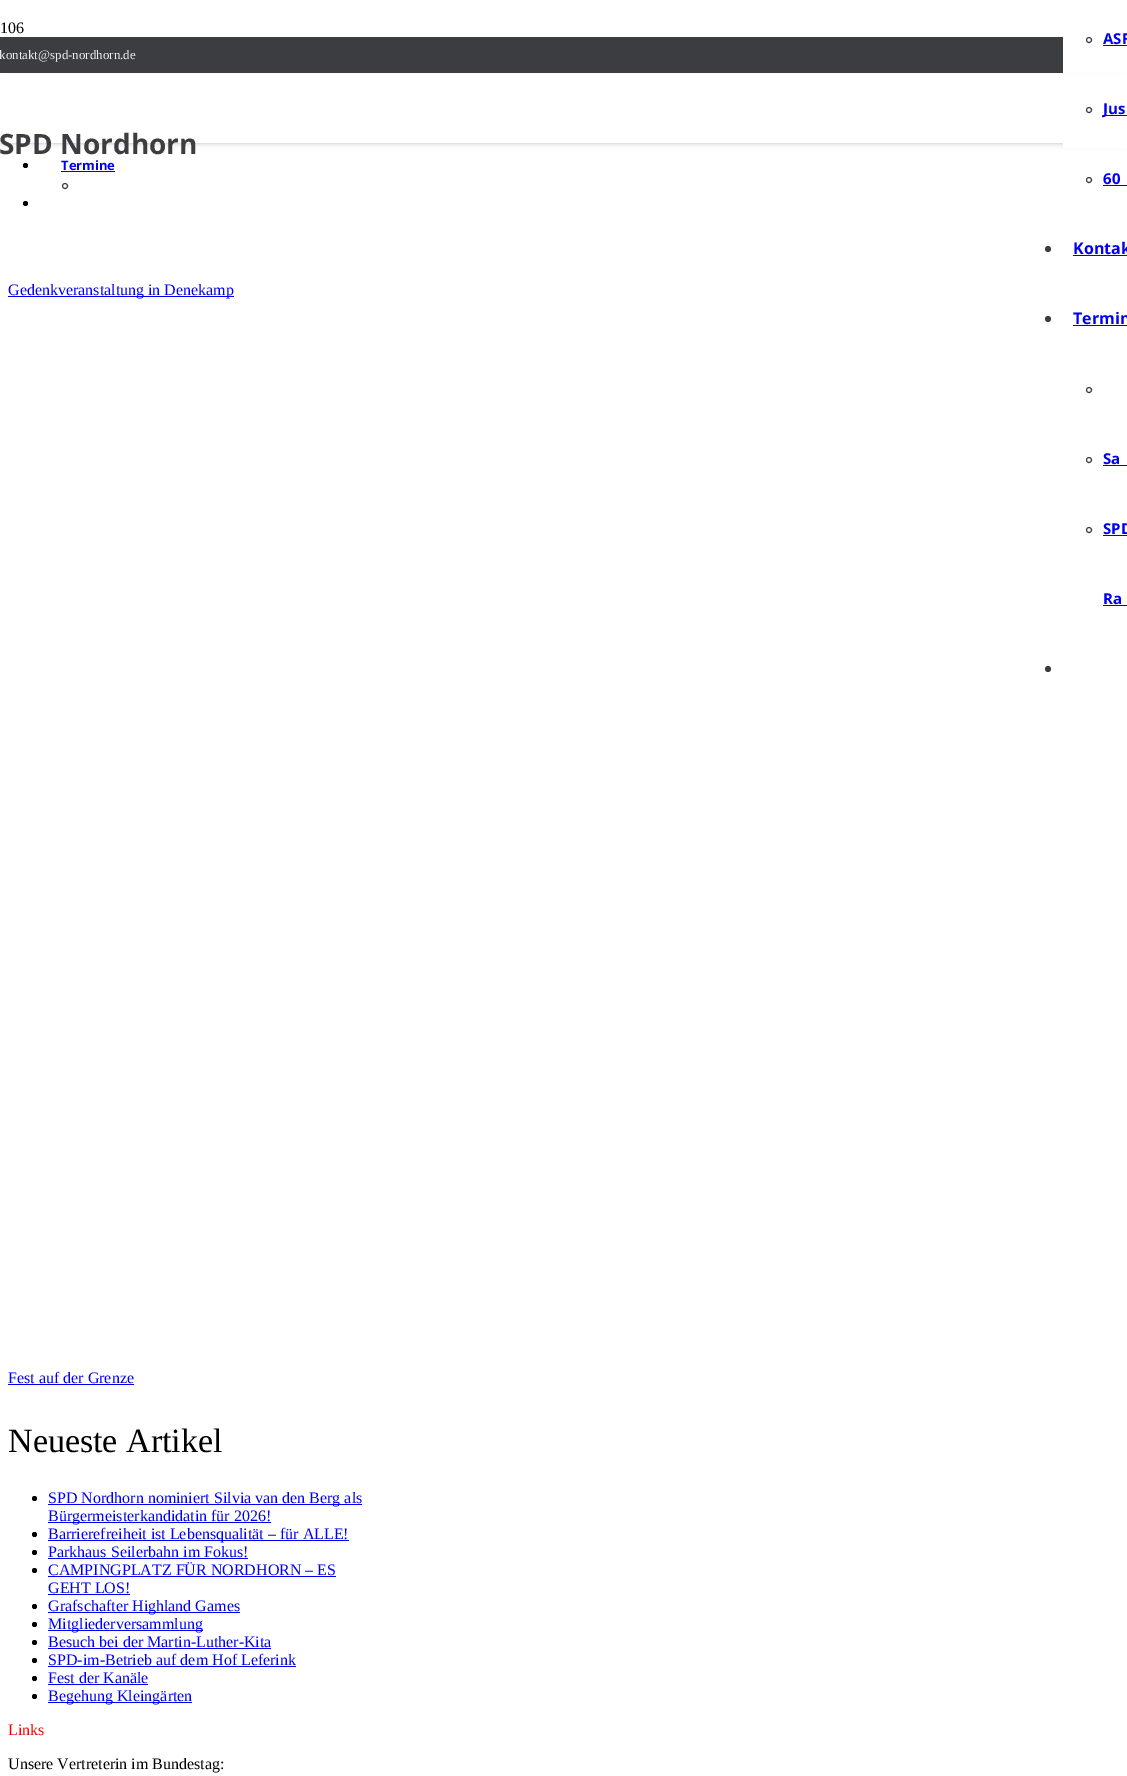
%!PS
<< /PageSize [1127 1776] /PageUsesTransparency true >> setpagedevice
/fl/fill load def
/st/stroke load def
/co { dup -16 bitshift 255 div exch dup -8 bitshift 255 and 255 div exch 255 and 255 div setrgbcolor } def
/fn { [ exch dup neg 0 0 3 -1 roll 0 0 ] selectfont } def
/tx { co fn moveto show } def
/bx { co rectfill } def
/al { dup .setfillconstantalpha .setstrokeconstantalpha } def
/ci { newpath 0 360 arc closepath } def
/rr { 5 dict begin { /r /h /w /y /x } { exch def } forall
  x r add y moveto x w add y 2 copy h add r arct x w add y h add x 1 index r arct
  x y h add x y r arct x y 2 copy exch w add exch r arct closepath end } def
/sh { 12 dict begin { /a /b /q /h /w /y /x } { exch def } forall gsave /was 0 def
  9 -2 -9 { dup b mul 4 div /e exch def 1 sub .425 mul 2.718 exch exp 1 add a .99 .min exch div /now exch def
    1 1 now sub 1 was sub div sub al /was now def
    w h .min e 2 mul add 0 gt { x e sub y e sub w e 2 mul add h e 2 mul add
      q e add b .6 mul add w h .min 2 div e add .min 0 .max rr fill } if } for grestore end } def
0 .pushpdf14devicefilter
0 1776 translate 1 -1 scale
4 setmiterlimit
0 0 1127 1776 16#FFFFFF bx
16#000000 co
0 76 1126 68 0 .5 .05 sh
0 37 1063 36 16#3B3D40 bx
16#000000 co
0 77 1126 68 0 2.5 .1 sh
0 74 1063 69 16#FFFFFF bx
1063 74 64 74 16#FFFFFF bx
16#3B3D40 co
1089 40 2.5 ci st
1103 45 24 1 16#0000EE bx
16#3B3D40 co
1089 110 2.5 ci st
1103 115 24 1 16#0000EE bx
16#3B3D40 co
1089 180 2.5 ci st
1103 185 24 1 16#0000EE bx
16#3B3D40 co
1048 249 3 ci fl
1073 255 54 1 16#0000EE bx
16#3B3D40 co
1048 319 3 ci fl
1073 325 54 1 16#0000EE bx
16#3B3D40 co
1089 390 2.5 ci st
1089 460 2.5 ci st
1103 465 24 1 16#0000EE bx
16#3B3D40 co
1089 530 2.5 ci st
1103 535 24 1 16#0000EE bx
1103 605 24 1 16#0000EE bx
16#3B3D40 co
1048 669 3 ci fl
16#000000 co
25.5 165.5 2.5 ci fl
61 171 54 1 16#0000EE bx
16#3B3D40 co
65 186 2.5 ci st
16#000000 co
25.5 203.5 2.5 ci fl
8 296 226 1 16#0000EE bx
8 1384 126 1 16#0000EE bx
16#000000 co
34.5 1498.5 2.5 ci fl
48 1504 314 1 16#0000EE bx
48 1522 223 1 16#0000EE bx
16#000000 co
34.5 1534.5 2.5 ci fl
48 1540 301 1 16#0000EE bx
16#000000 co
34.5 1552.5 2.5 ci fl
48 1558 200 1 16#0000EE bx
16#000000 co
34.5 1570.5 2.5 ci fl
48 1576 288 1 16#0000EE bx
48 1594 82 1 16#0000EE bx
16#000000 co
34.5 1606.5 2.5 ci fl
48 1612 192 1 16#0000EE bx
16#000000 co
34.5 1624.5 2.5 ci fl
48 1630 155 1 16#0000EE bx
16#000000 co
34.5 1642.5 2.5 ci fl
48 1648 223 1 16#0000EE bx
16#000000 co
34.5 1660.5 2.5 ci fl
48 1666 248 1 16#0000EE bx
16#000000 co
34.5 1678.5 2.5 ci fl
48 1684 100 1 16#0000EE bx
16#000000 co
34.5 1696.5 2.5 ci fl
48 1702 144 1 16#0000EE bx
(106) 0 33 /LiberationSerif-Regular 16 16#000000 tx
(SPD Nordhorn) -1 154 /OpenSans-Bold 28 16#3B3D40 tx
(ASF) 1103 44 /OpenSans-Bold 15 16#0000EE tx
(Jus) 1103 114 /OpenSans-Bold 15 16#0000EE tx
(60) 1103 184 /OpenSans-Bold 15 16#0000EE tx
(Kontak) 1073 254 /OpenSans-Bold 16 16#0000EE tx
(Termin) 1073 324 /OpenSans-Bold 16 16#0000EE tx
(Sa) 1103 464 /OpenSans-Bold 15 16#0000EE tx
(SPD) 1103 534 /OpenSans-Bold 15 16#0000EE tx
(Ra) 1103 604 /OpenSans-Bold 15 16#0000EE tx
(kontakt@spd-nordhorn.de) -1 59 /LiberationSerif-Regular 13 16#EEEEEE tx
(Termine) 61 170 /OpenSans-Bold 13 16#0000EE tx
(Gedenkveranstaltung in Denekamp) 8 295 /LiberationSerif-Regular 16 16#0000EE tx
(Fest auf der Grenze) 8 1383 /LiberationSerif-Regular 16 16#0000EE tx
(Neueste Artikel) 8 1452 /LiberationSerif-Regular 34 16#000000 tx
(SPD Nordhorn nominiert Silvia van den Berg als) 48 1503 /LiberationSerif-Regular 16 16#0000EE tx
(Bürgermeisterkandidatin für 2026!) 48 1521 /LiberationSerif-Regular 16 16#0000EE tx
(Barrierefreiheit ist Lebensqualität – für ALLE!) 48 1539 /LiberationSerif-Regular 16 16#0000EE tx
(Parkhaus Seilerbahn im Fokus!) 48 1557 /LiberationSerif-Regular 16 16#0000EE tx
(CAMPINGPLATZ FÜR NORDHORN – ES) 48 1575 /LiberationSerif-Regular 16 16#0000EE tx
(GEHT LOS!) 48 1593 /LiberationSerif-Regular 16 16#0000EE tx
(Grafschafter Highland Games) 48 1611 /LiberationSerif-Regular 16 16#0000EE tx
(Mitgliederversammlung) 48 1629 /LiberationSerif-Regular 16 16#0000EE tx
(Besuch bei der Martin-Luther-Kita) 48 1647 /LiberationSerif-Regular 16 16#0000EE tx
(SPD-im-Betrieb auf dem Hof Leferink) 48 1665 /LiberationSerif-Regular 16 16#0000EE tx
(Fest der Kanäle) 48 1683 /LiberationSerif-Regular 16 16#0000EE tx
(Begehung Kleingärten) 48 1701 /LiberationSerif-Regular 16 16#0000EE tx
(Links) 8 1735 /LiberationSerif-Regular 16 16#FF0000 tx
(Unsere Vertreterin im Bundestag:) 8 1769 /LiberationSerif-Regular 16 16#000000 tx
.poppdf14devicefilter showpage
